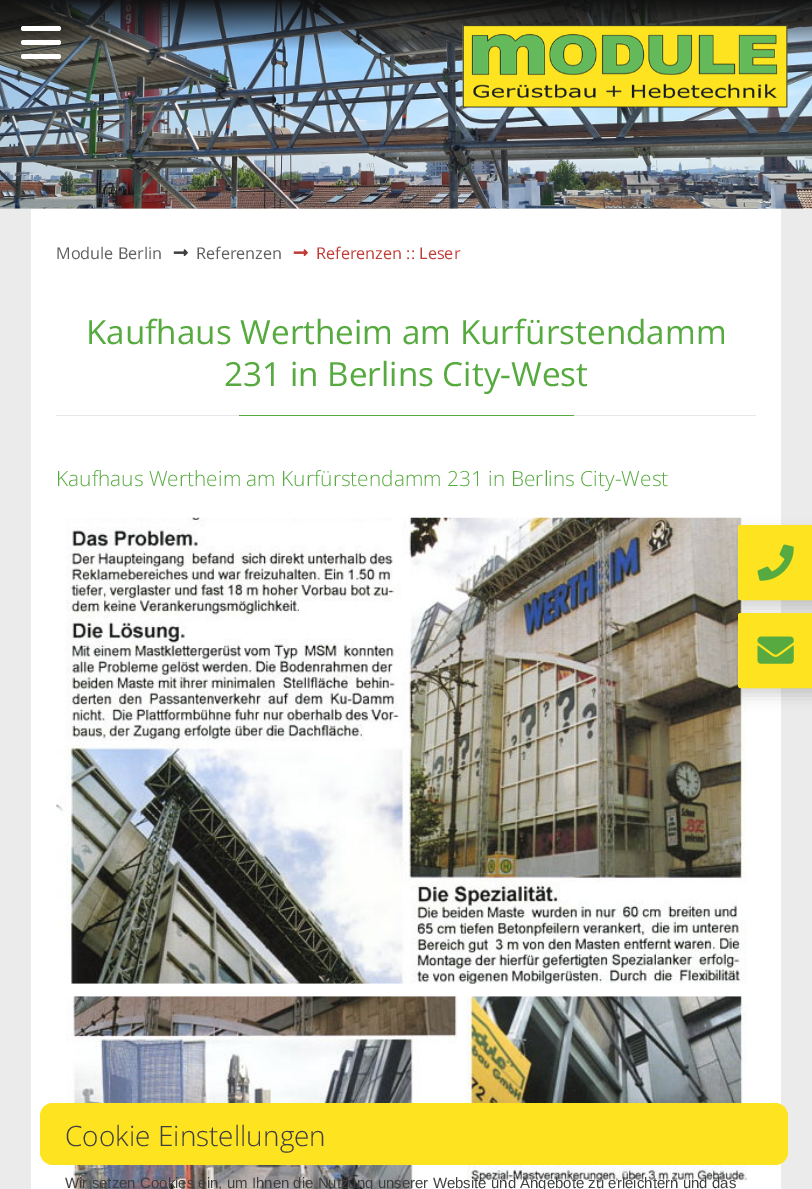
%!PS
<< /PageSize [812 1189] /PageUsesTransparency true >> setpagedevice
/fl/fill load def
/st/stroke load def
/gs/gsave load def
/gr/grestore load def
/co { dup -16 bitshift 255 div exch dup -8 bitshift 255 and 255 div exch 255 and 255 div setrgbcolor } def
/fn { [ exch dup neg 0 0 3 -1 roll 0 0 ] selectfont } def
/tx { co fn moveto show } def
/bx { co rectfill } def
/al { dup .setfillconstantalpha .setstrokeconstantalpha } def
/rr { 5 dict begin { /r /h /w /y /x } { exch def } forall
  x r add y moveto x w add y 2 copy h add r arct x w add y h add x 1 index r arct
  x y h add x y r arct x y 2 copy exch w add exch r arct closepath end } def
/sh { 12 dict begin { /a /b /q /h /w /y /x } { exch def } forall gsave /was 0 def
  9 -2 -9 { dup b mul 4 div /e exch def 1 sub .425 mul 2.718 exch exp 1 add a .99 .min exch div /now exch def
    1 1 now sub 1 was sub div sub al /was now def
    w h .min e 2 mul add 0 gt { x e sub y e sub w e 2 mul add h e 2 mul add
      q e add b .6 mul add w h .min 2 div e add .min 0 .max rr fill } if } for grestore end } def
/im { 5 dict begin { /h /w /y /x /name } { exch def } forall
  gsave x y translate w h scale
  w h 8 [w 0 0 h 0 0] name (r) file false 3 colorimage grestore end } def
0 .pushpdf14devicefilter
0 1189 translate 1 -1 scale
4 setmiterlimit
0 0 812 1189 16#EBEBEB bx
(media/1.raw) 0 0 812 209 im
16#FFFFFF co
21 26 40 5 2.5 rr fl
21 40 40 5 2.5 rr fl
21 54 40 5 2.5 rr fl
(media/2.raw) 462 25 326 83 im
31 209 750 980 16#FFFFFF bx
(media/3.raw) 173 249 15 8 im
(media/4.raw) 293 249 15 8 im
56 415 700 1 16#E8E8E8 bx
239 415 335 1 16#56AA3F bx
(media/5.raw) 56 517 691 467 im
(media/6.raw) 66 996 681 193 im
16#0F0F0F co
738 533 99 75 2.5 7.5 .18 sh
16#FDE320 co
738.5 525.5 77 74 2 rr gs fl gr
st
(media/7.raw) 757 544 37 37 im
16#0F0F0F co
738 620 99 75 2.5 7.5 .18 sh
16#FDE320 co
738.5 613.5 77 74 2 rr gs fl gr
st
(media/8.raw) 757 636 37 28 im
16#FFFFFF co
738.5 1184.5 55 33 27.5 rr gs fl gr
st
16#FDE320 co
40 1103 748 62 13 rr fl
(Module Berlin) 56 259 /OpenSans-Regular 16.25 16#5F5F5F tx
(Referenzen) 196 259 /OpenSans-Regular 16.25 16#5F5F5F tx
(Referenzen :: Leser) 316 259 /OpenSans-Regular 16.25 16#C03C36 tx
(Kaufhaus Wertheim am Kurfürstendamm) 86 344 /OpenSans-Regular 33.25 16#56AA3F tx
(231 in Berlins City-West) 224 386 /OpenSans-Regular 33.25 16#56AA3F tx
(Kaufhaus Wertheim am Kurfürstendamm 231 in Berlins City-West) 56 486 /OpenSans-Light 20.9 16#56AA3F tx
(Cookie Einstellungen) 65 1146 /OpenSans-Light 28 16#3F3F3F tx
(Wir setzen Cookies ein, um Ihnen die Nutzung unserer Website und Angebote zu erleichtern und das) 65 1188 /LiberationSans-Regular 15 16#3F3F3F tx
.poppdf14devicefilter showpage
